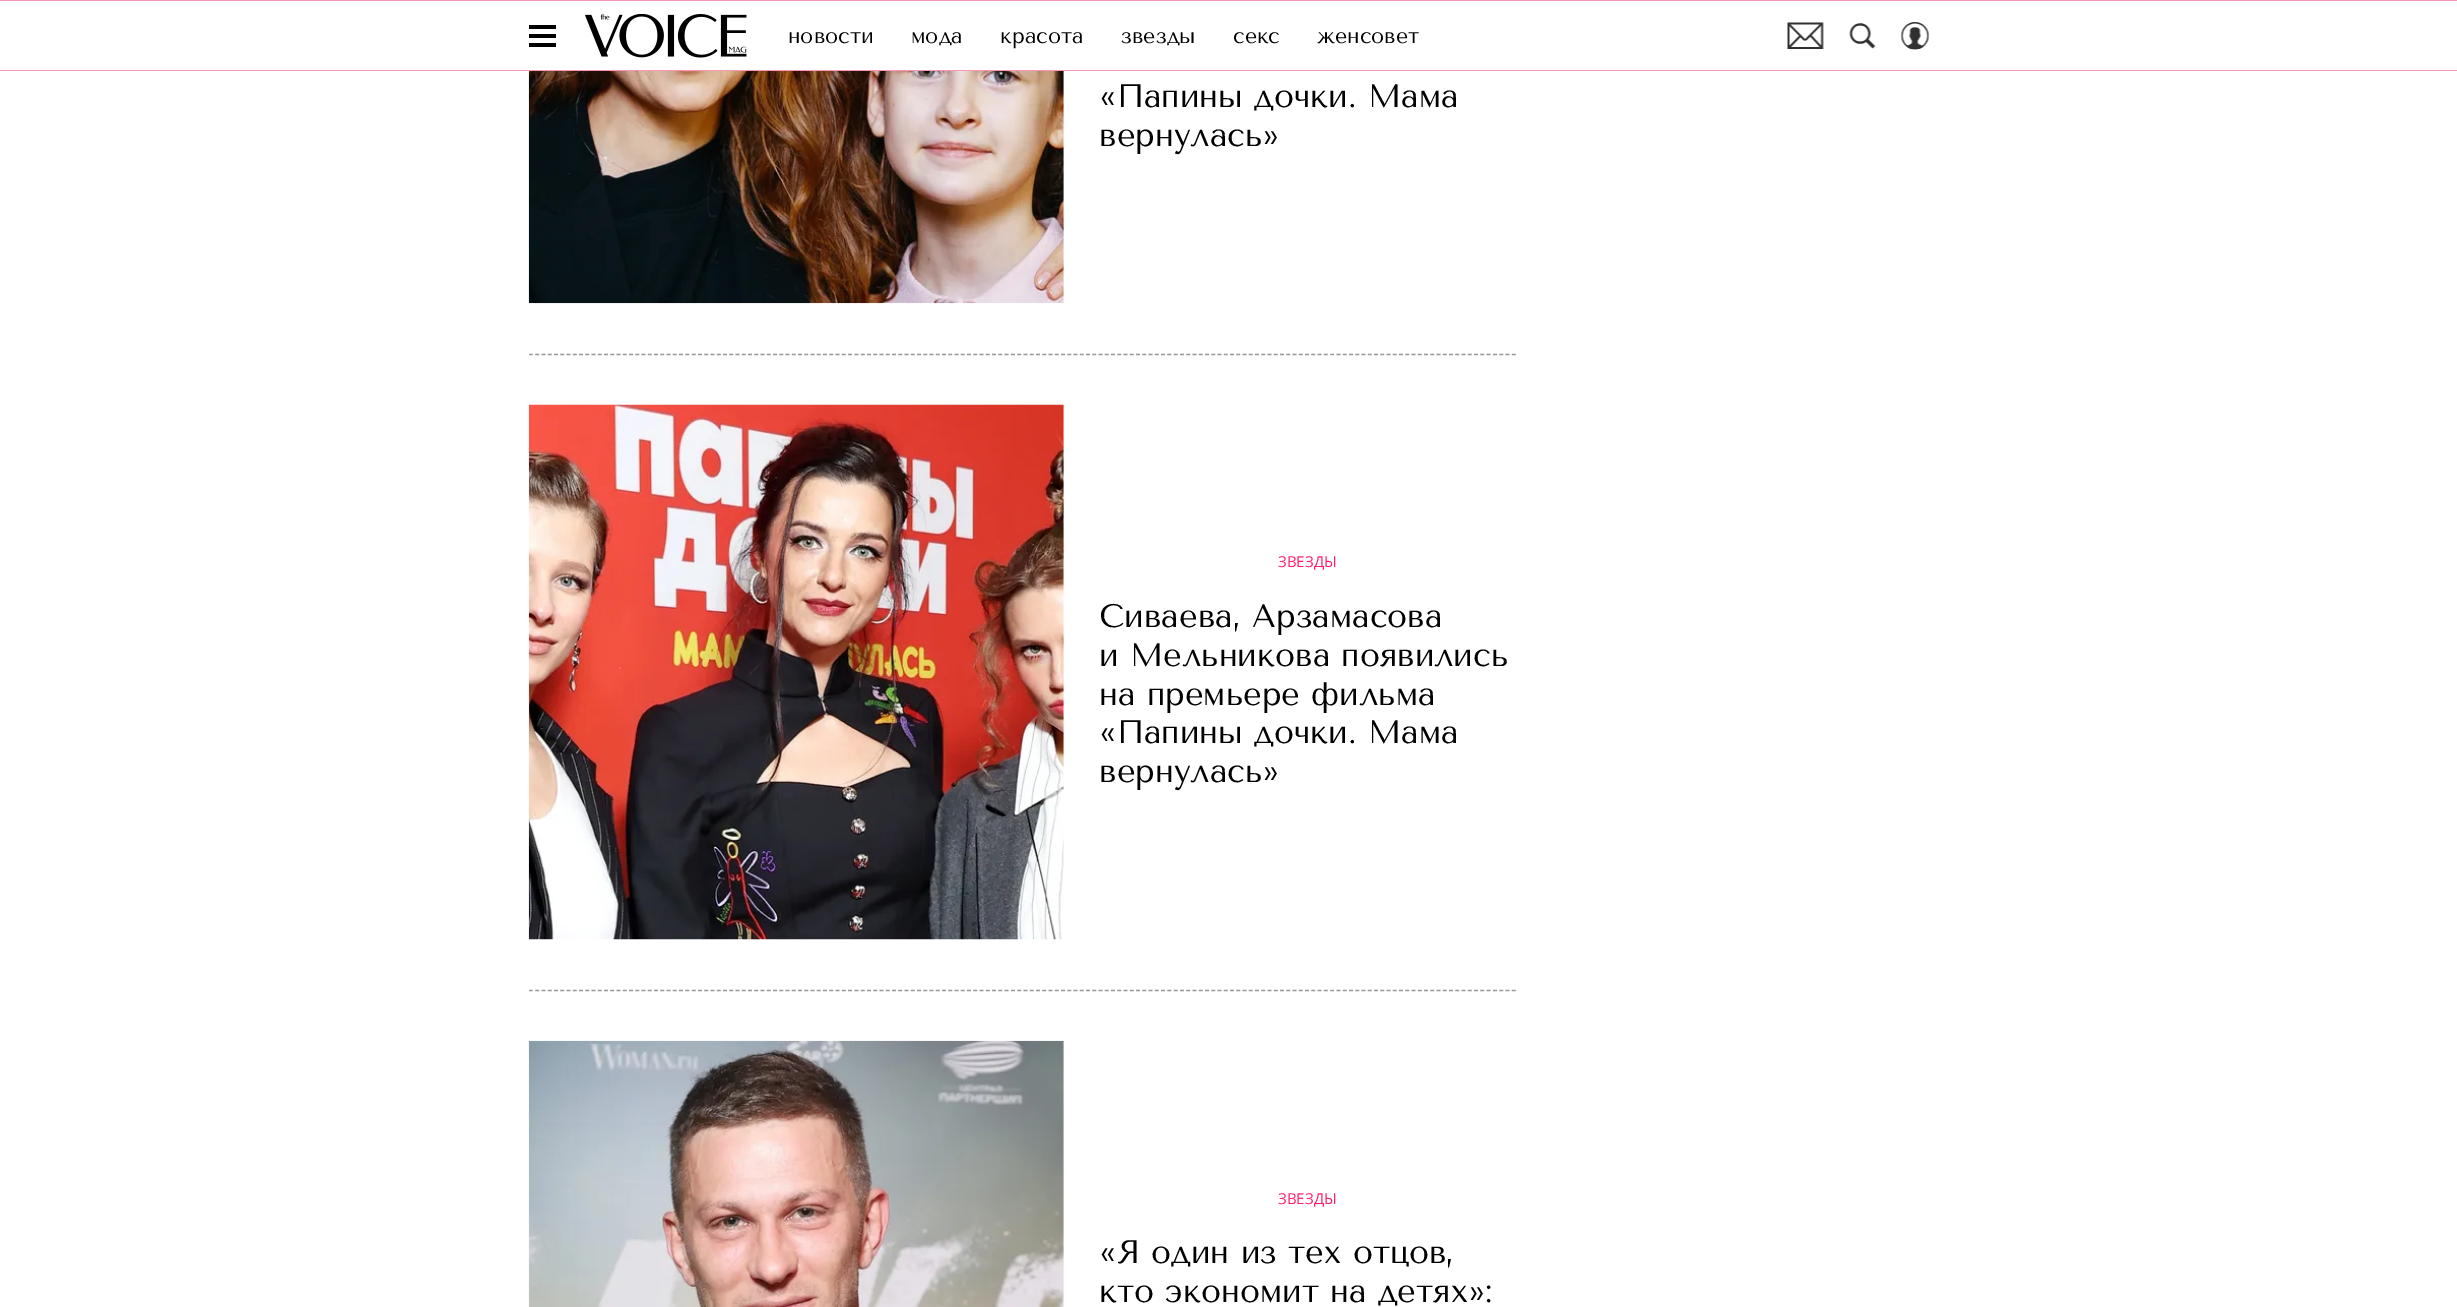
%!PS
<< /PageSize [2457 1307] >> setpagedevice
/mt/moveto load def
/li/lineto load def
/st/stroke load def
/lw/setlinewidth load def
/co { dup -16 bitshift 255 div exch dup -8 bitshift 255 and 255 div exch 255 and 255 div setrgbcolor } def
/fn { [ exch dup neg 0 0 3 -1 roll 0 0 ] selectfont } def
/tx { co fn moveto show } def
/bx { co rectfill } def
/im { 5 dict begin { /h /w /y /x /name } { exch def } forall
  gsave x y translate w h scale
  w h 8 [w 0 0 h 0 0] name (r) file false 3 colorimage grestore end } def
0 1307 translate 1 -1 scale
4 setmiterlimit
0 0 2457 1307 16#FFFFFF bx
0 0 2457 1 16#F796B7 bx
0 70 2457 1 16#F796B7 bx
529 43 27 4 16#000000 bx
529 25 27 4 16#000000 bx
529 34 27 4 16#000000 bx
(media/1.raw) 585 14 162 44 im
(media/2.raw) 1787 22 37 27 im
(media/3.raw) 1849 23 27 26 im
(media/4.raw) 1900 22 30 28 im
(media/5.raw) 528 71 536 233 im
16#979797 co
1.2 lw
[3.75 2.51] 0 setdash
529 354.5 mt 1516 354.5 li st
(media/6.raw) 528 404 536 536 im
529 990.5 mt 1516 990.5 li st
(media/7.raw) 528 1040 536 267 im
(новости) 788 43 /TenorSans-Regular 21.25 16#000000 tx
(мода) 911 43 /TenorSans-Regular 21.25 16#000000 tx
(красота) 1000 43 /TenorSans-Regular 21.25 16#000000 tx
(звезды) 1121 43 /TenorSans-Regular 21.25 16#000000 tx
(секс) 1233 43 /TenorSans-Regular 21.25 16#000000 tx
(женсовет) 1317 43 /TenorSans-Regular 21.25 16#000000 tx
(«Папины дочки. Мама) 1099 107 /TenorSans-Regular 32.5 16#000000 tx
(вернулась») 1099 146 /TenorSans-Regular 32.5 16#000000 tx
(ЗВЕЗДЫ) 1278 567 /OpenSans-Regular 15 16#FF1F6B tx
(Сиваева, Арзамасова) 1099 627 /TenorSans-Regular 32.5 16#000000 tx
(и Мельникова появились) 1099 666 /TenorSans-Regular 32.5 16#000000 tx
(на премьере фильма) 1099 705 /TenorSans-Regular 32.5 16#000000 tx
(«Папины дочки. Мама) 1099 743 /TenorSans-Regular 32.5 16#000000 tx
(вернулась») 1099 782 /TenorSans-Regular 32.5 16#000000 tx
(ЗВЕЗДЫ) 1278 1204 /OpenSans-Regular 15 16#FF1F6B tx
(«Я один из тех отцов,) 1099 1263 /TenorSans-Regular 32.5 16#000000 tx
(кто экономит на детях»:) 1099 1302 /TenorSans-Regular 32.5 16#000000 tx
showpage
